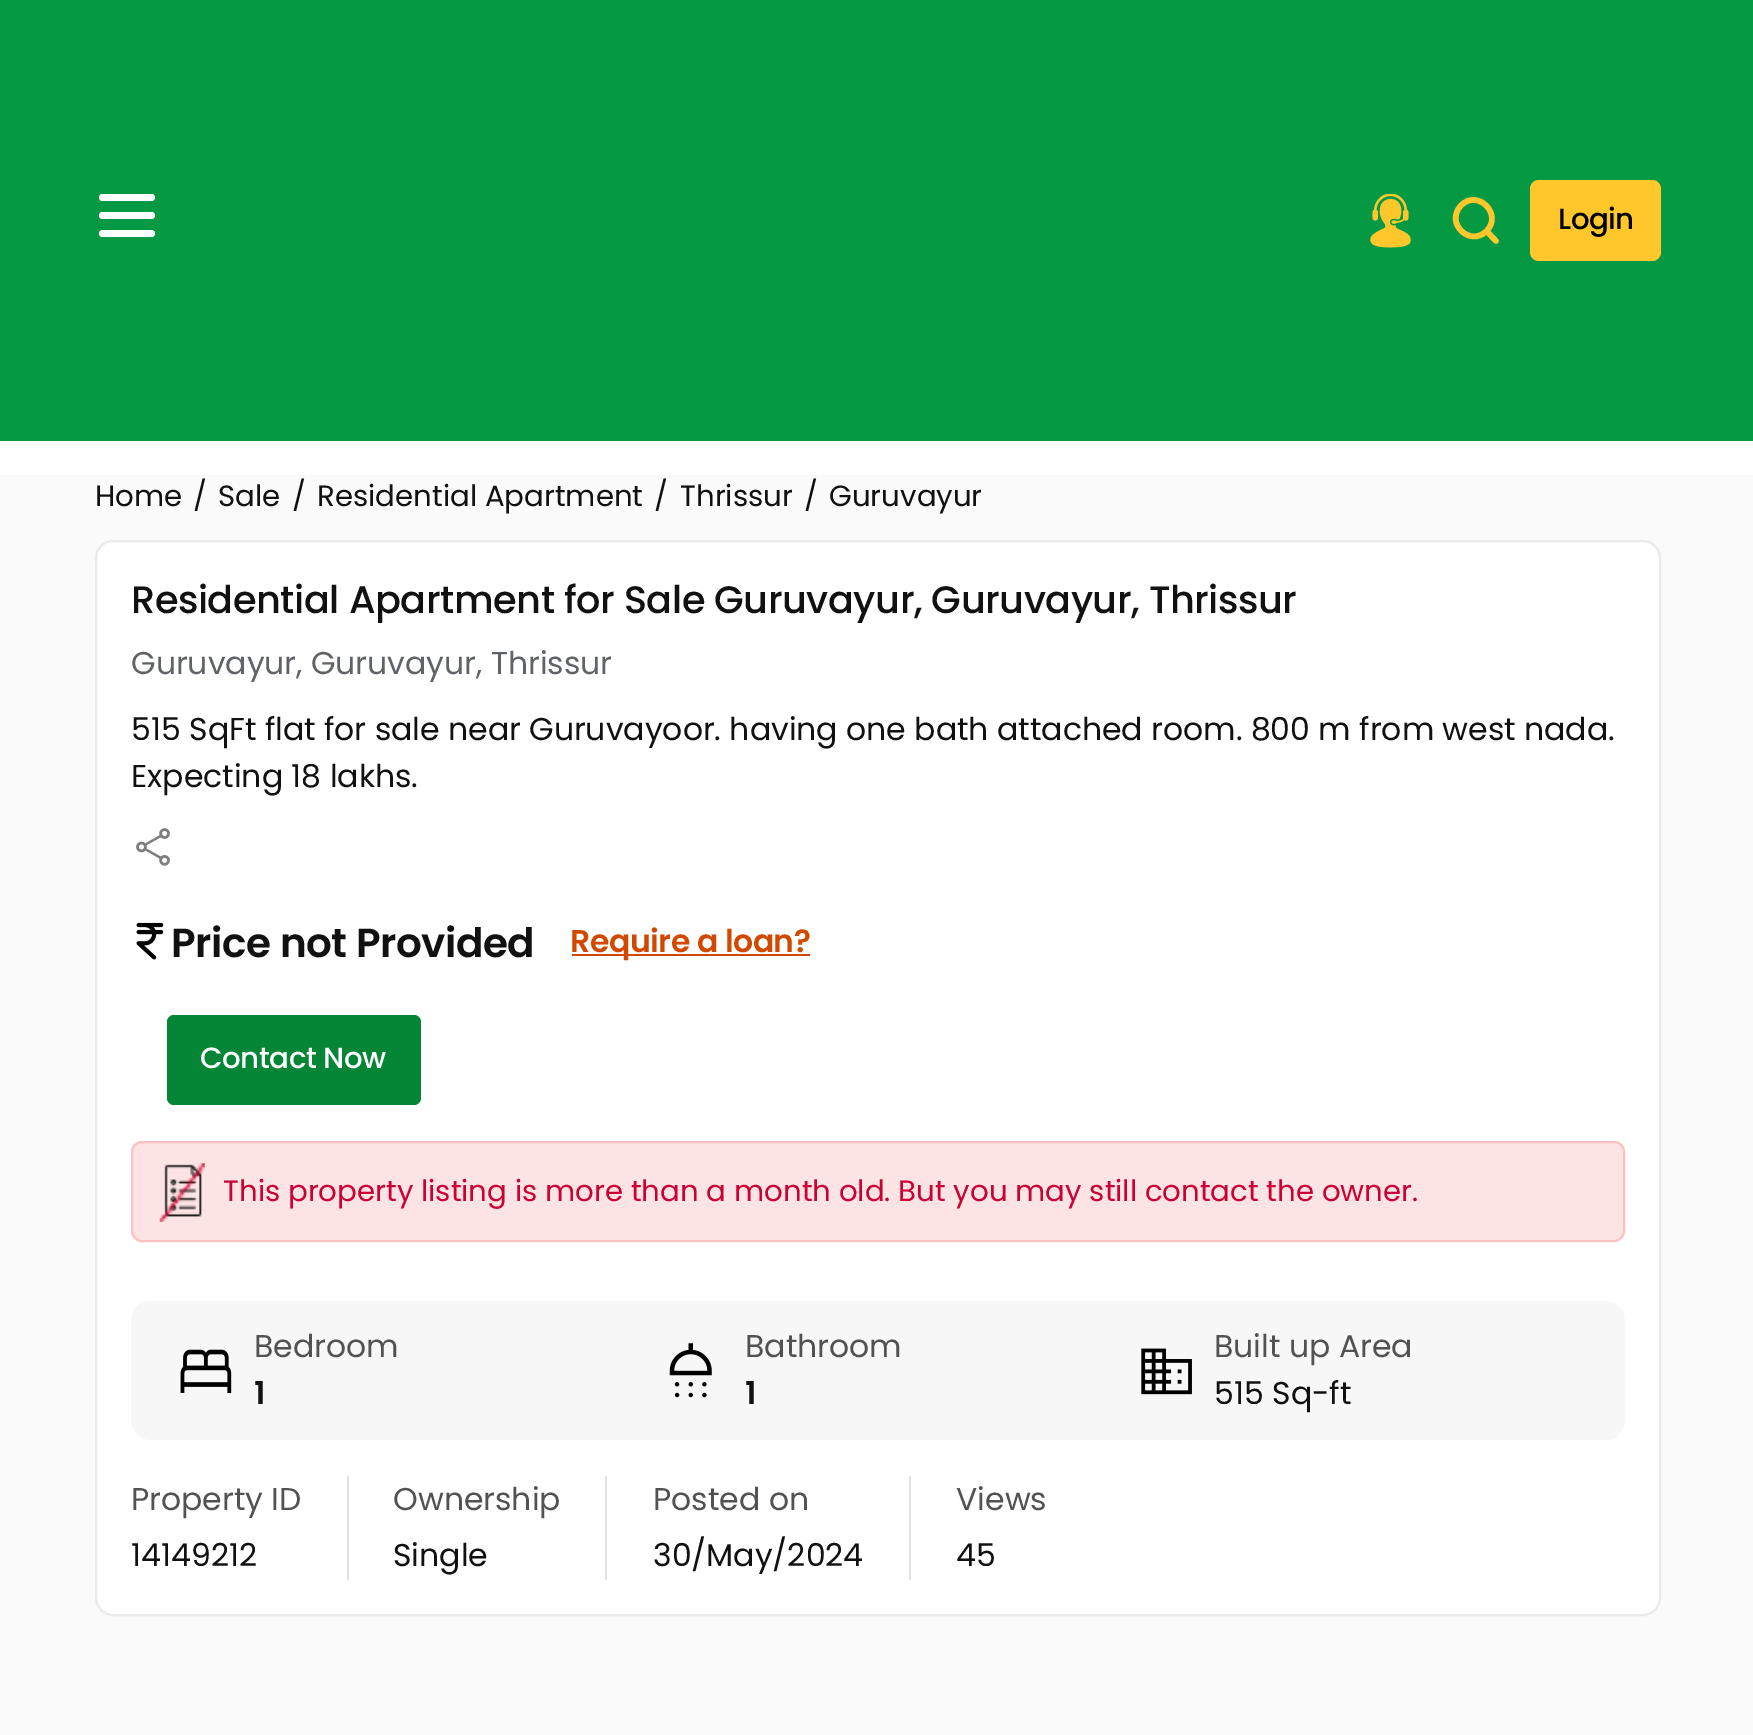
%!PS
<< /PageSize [1753 1735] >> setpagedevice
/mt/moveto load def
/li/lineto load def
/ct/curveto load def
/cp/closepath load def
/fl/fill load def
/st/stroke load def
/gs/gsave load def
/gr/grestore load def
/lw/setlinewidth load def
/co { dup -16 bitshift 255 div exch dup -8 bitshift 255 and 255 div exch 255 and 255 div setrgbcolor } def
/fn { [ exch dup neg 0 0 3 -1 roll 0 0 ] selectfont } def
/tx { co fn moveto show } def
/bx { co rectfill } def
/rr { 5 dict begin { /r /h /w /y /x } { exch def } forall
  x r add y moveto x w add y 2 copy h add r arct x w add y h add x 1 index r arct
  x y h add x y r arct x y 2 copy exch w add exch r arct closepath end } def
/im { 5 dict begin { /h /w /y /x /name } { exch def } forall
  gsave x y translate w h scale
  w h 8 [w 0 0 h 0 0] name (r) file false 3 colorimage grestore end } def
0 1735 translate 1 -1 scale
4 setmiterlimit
0 0 1753 1735 16#FFFFFF bx
0 0 1753 441 16#059943 bx
16#FFFFFF co
99 212 56 7 3.5 rr fl
99 194 56 7 3.5 rr fl
99 230 56 7 3.5 rr fl
(media/1.raw) 1370 194 41 54 im
16#FFC72C co
5.6 lw
1 setlinecap
1 setlinejoin
1496 241 mt 1486.5 231 li 1486.5 231 mt 1503.5 214 1477 188.5 1461 205.5 ct 1444.5 223 1470 247.5 1486.5 231 ct cp st
1530 180 131 81 9 rr fl
0 475 1753 1260 16#FAFAFA bx
16#FFFFFF co
96 541 1564 1074 17 rr gs fl gr
16#EAEAEA co
2 lw
0 setlinecap
0 setlinejoin
st
(media/2.raw) 136 828 34 38 im
(media/3.raw) 136 922 28 38 im
572 954 238 2 16#D14900 bx
16#058536 co
167 1015 254 90 7 rr fl
16#FCE4E4 co
131 1141 1494 101 11 rr fl
(media/4.raw) 159 1163 46 59 im
16#FCC2C3 co
132 1142 1492 99 10 rr st
16#F7F7F7 co
131 1301 1494 139 20 rr fl
(media/5.raw) 180 1349 52 44 im
(media/6.raw) 669 1343 43 55 im
(media/7.raw) 1141 1348 51 47 im
347 1476 2 104 16#E1E1E1 bx
605 1476 2 104 16#E1E1E1 bx
909 1476 2 104 16#E1E1E1 bx
/Poppins-Medium 29.25 fn
16#000000 co
1558 229 mt -.45 0 (Login) ashow
(Home) 95 506 /Poppins-Regular 29.25 16#111111 tx
(/) 193 506 /Poppins-Regular 29.25 16#111111 tx
(Sale) 218 506 /Poppins-Regular 29.25 16#111111 tx
(/) 292 506 /Poppins-Regular 29.25 16#111111 tx
(Residential Apartment) 317 506 /Poppins-Regular 29.25 16#111111 tx
(/) 654 506 /Poppins-Regular 29.25 16#111111 tx
(Thrissur) 680 506 /Poppins-Regular 29.25 16#111111 tx
(/) 804 506 /Poppins-Regular 29.25 16#111111 tx
(Guruvayur) 829 506 /Poppins-Regular 29.25 16#111111 tx
/Poppins-Medium 38.25 fn
131 613 mt -.45 0 (Residential Apartment for Sale Guruvayur, Guruvayur, Thrissur) ashow
(Guruvayur, Guruvayur, Thrissur) 131 674 /Poppins-Regular 31.5 16#5F6368 tx
(515 SqFt flat for sale near Guruvayoor. having one bath attached room. 800 m from west nada.) 131 740 /Poppins-Regular 31.5 16#111111 tx
(Expecting 18 lakhs.) 131 787 /Poppins-Regular 31.5 16#111111 tx
/Poppins-SemiBold 40.5 fn
171 957 mt -.45 0 (Price not Provided) ashow
/Poppins-SemiBold 31.5 fn
16#D14900 co
570 952 mt -.45 0 (Require a loan?) ashow
/Poppins-Medium 29.25 fn
16#FFFFFF co
200 1068 mt -.45 0 (Contact Now) ashow
(This property listing is more than a month old. But you may still contact the owner.) 223 1201 /Poppins-Regular 29.25 16#CC0033 tx
(Bedroom) 254 1357 /Poppins-Regular 31.5 16#525252 tx
(1) 254 1404 /Poppins-SemiBold 31.5 16#111111 tx
(Bathroom) 745 1357 /Poppins-Regular 31.5 16#525252 tx
(1) 745 1404 /Poppins-SemiBold 31.5 16#111111 tx
(Built up Area) 1214 1357 /Poppins-Regular 31.5 16#525252 tx
(515 Sq-ft) 1214 1404 /Poppins-Regular 31.5 16#111111 tx
(Property ID) 131 1510 /Poppins-Regular 31.5 16#525252 tx
(14149212) 131 1566 /Poppins-Regular 31.5 16#111111 tx
(Ownership) 393 1510 /Poppins-Regular 31.5 16#525252 tx
(Single) 393 1566 /Poppins-Regular 31.5 16#111111 tx
(Posted on) 653 1510 /Poppins-Regular 31.5 16#525252 tx
(30/May/2024) 653 1566 /Poppins-Regular 31.5 16#111111 tx
(Views) 956 1510 /Poppins-Regular 31.5 16#525252 tx
(45) 956 1566 /Poppins-Regular 31.5 16#111111 tx
showpage
